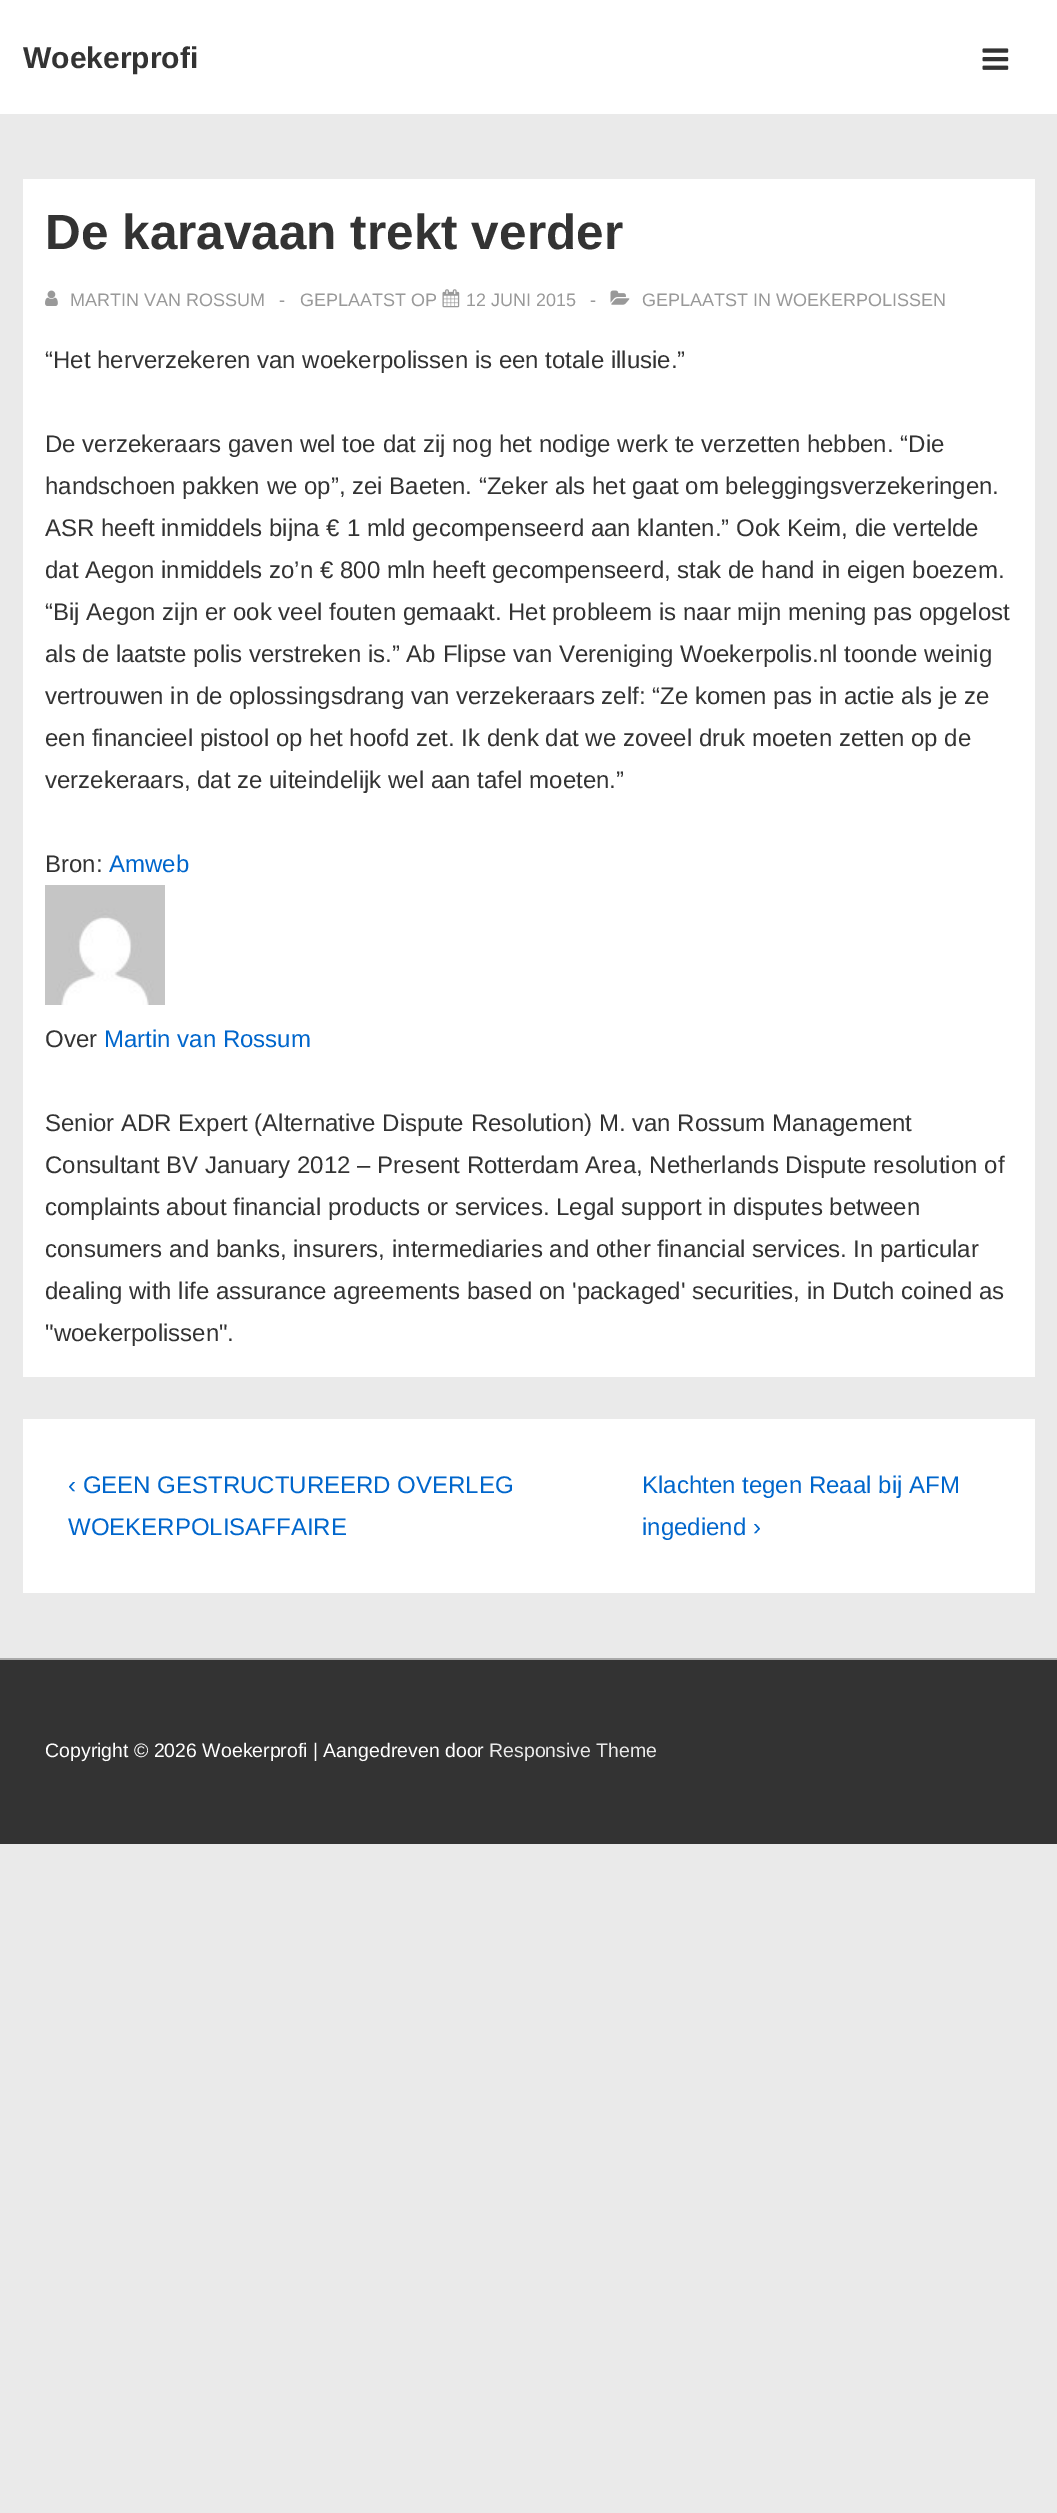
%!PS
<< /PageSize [1057 2513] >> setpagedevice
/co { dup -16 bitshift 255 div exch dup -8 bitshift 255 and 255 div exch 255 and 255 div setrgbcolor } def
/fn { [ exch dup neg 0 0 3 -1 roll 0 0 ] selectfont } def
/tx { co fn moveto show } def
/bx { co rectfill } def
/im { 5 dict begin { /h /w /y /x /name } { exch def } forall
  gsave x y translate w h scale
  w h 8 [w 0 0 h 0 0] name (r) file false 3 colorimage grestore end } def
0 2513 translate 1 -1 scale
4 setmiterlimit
0 0 1057 2513 16#EAEAEA bx
0 0 1057 114 16#FFFFFF bx
(media/1.raw) 982 48 27 22 im
23 179 1012 1198 16#FFFFFF bx
(media/2.raw) 45 290 13 16 im
(media/3.raw) 442 289 18 19 im
(media/4.raw) 610 290 20 15 im
(media/5.raw) 45 885 120 120 im
23 1419 1012 174 16#FFFFFF bx
0 1660 1057 184 16#333333 bx
0 1658 1057 2 16#AAAAAA bx
(Woekerprofi) 23 68 /LiberationSans-Bold 30 16#333333 tx
(De karavaan trekt verder) 45 249 /LiberationSans-Bold 49.5 16#333333 tx
(MARTIN VAN ROSSUM) 70 306 /LiberationSans-Regular 18 16#999999 tx
(-) 279 306 /LiberationSans-Regular 18 16#999999 tx
(GEPLAATST OP) 300 306 /LiberationSans-Regular 18 16#999999 tx
(12 JUNI 2015) 466 306 /LiberationSans-Regular 18 16#999999 tx
(-) 590 306 /LiberationSans-Regular 18 16#999999 tx
(GEPLAATST IN WOEKERPOLISSEN) 642 306 /LiberationSans-Regular 18 16#999999 tx
(“Het herverzekeren van woekerpolissen is een totale illusie.”) 45 368 /LiberationSans-Regular 24 16#333333 tx
(De verzekeraars gaven wel toe dat zij nog het nodige werk te verzetten hebben. “Die) 45 452 /LiberationSans-Regular 24 16#333333 tx
(handschoen pakken we op”, zei Baeten. “Zeker als het gaat om beleggingsverzekeringen.) 45 494 /LiberationSans-Regular 24 16#333333 tx
(ASR heeft inmiddels bijna € 1 mld gecompenseerd aan klanten.” Ook Keim, die vertelde) 45 536 /LiberationSans-Regular 24 16#333333 tx
(dat Aegon inmiddels zo’n € 800 mln heeft gecompenseerd, stak de hand in eigen boezem.) 45 578 /LiberationSans-Regular 24 16#333333 tx
(“Bij Aegon zijn er ook veel fouten gemaakt. Het probleem is naar mijn mening pas opgelost) 45 620 /LiberationSans-Regular 24 16#333333 tx
(als de laatste polis verstreken is.” Ab Flipse van Vereniging Woekerpolis.nl toonde weinig) 45 662 /LiberationSans-Regular 24 16#333333 tx
(vertrouwen in de oplossingsdrang van verzekeraars zelf: “Ze komen pas in actie als je ze) 45 704 /LiberationSans-Regular 24 16#333333 tx
(een financieel pistool op het hoofd zet. Ik denk dat we zoveel druk moeten zetten op de) 45 746 /LiberationSans-Regular 24 16#333333 tx
(verzekeraars, dat ze uiteindelijk wel aan tafel moeten.”) 45 788 /LiberationSans-Regular 24 16#333333 tx
(Bron:) 45 872 /LiberationSans-Regular 24 16#333333 tx
(Amweb) 109 872 /LiberationSans-Regular 24 16#0066CC tx
(Over) 45 1047 /LiberationSans-Regular 24 16#333333 tx
(Martin van Rossum) 104 1047 /LiberationSans-Regular 24 16#0066CC tx
(Senior ADR Expert \(Alternative Dispute Resolution\) M. van Rossum Management) 45 1131 /LiberationSans-Regular 24 16#333333 tx
(Consultant BV January 2012 – Present Rotterdam Area, Netherlands Dispute resolution of) 45 1173 /LiberationSans-Regular 24 16#333333 tx
(complaints about financial products or services. Legal support in disputes between) 45 1215 /LiberationSans-Regular 24 16#333333 tx
(consumers and banks, insurers, intermediaries and other financial services. In particular) 45 1257 /LiberationSans-Regular 24 16#333333 tx
(dealing with life assurance agreements based on 'packaged' securities, in Dutch coined as) 45 1299 /LiberationSans-Regular 24 16#333333 tx
("woekerpolissen".) 45 1341 /LiberationSans-Regular 24 16#333333 tx
(‹ GEEN GESTRUCTUREERD OVERLEG) 68 1493 /LiberationSans-Regular 24 16#0066CC tx
(WOEKERPOLISAFFAIRE) 68 1535 /LiberationSans-Regular 24 16#0066CC tx
(Klachten tegen Reaal bij AFM) 642 1493 /LiberationSans-Regular 24 16#0066CC tx
(ingediend ›) 642 1535 /LiberationSans-Regular 24 16#0066CC tx
(Copyright © 2026 Woekerprofi | Aangedreven door) 45 1757 /LiberationSans-Regular 19.5 16#FFFFFF tx
(Responsive Theme) 489 1757 /LiberationSans-Regular 19.5 16#EAEAEA tx
showpage
